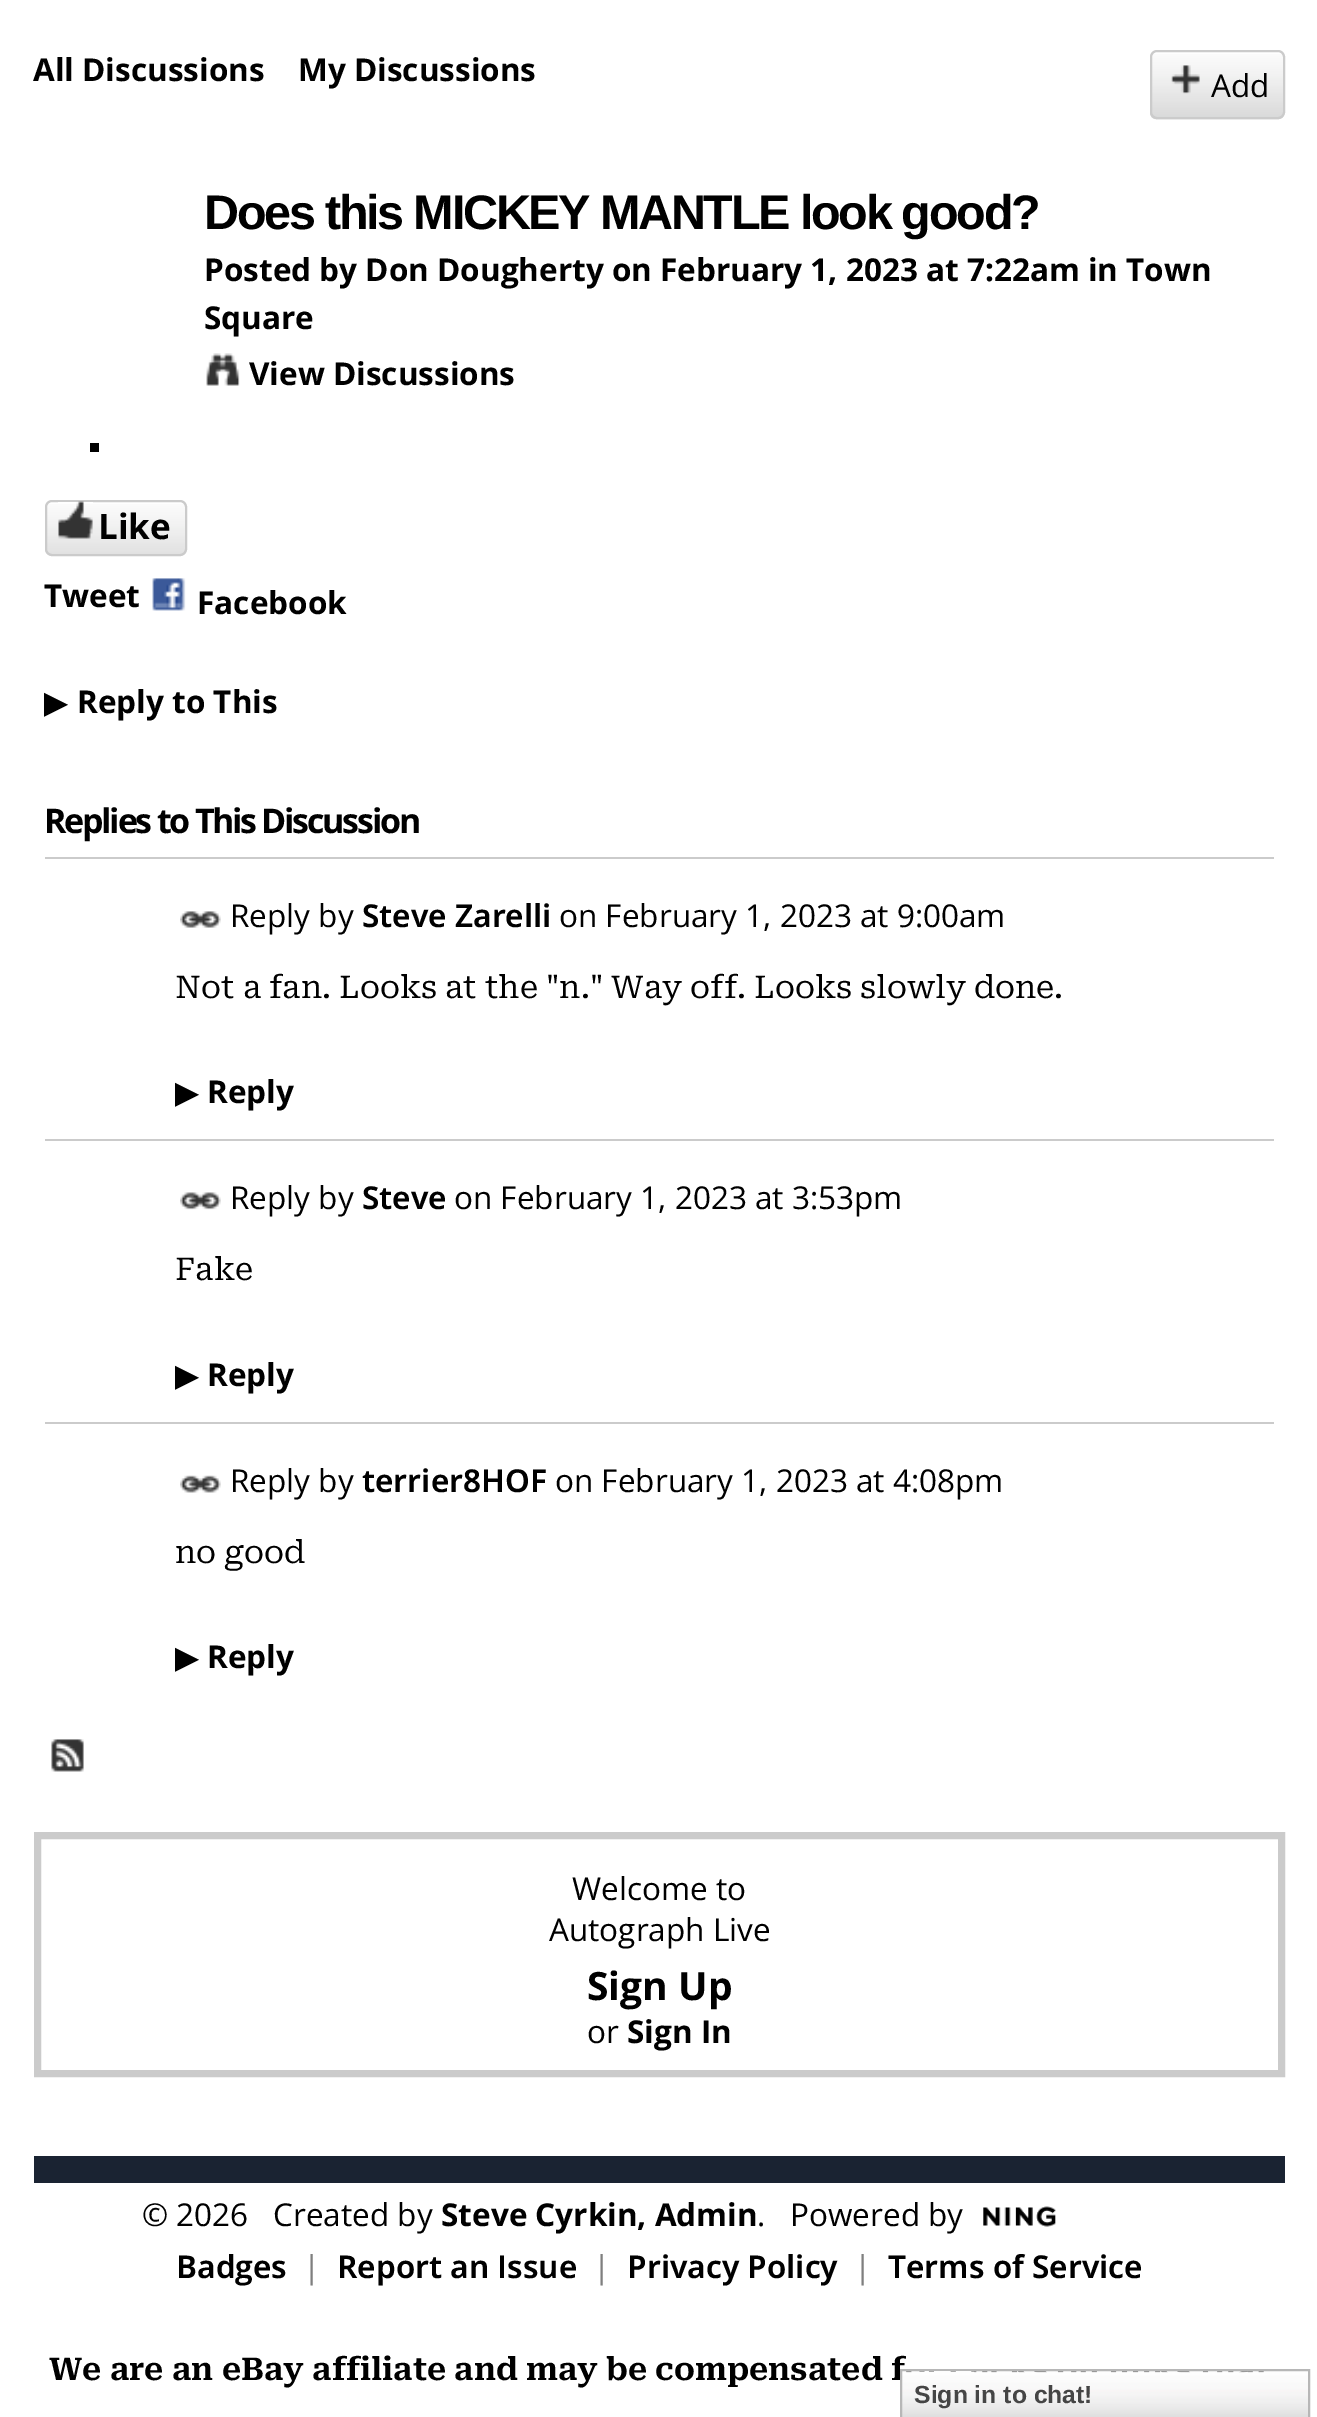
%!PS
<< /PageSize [1317 2417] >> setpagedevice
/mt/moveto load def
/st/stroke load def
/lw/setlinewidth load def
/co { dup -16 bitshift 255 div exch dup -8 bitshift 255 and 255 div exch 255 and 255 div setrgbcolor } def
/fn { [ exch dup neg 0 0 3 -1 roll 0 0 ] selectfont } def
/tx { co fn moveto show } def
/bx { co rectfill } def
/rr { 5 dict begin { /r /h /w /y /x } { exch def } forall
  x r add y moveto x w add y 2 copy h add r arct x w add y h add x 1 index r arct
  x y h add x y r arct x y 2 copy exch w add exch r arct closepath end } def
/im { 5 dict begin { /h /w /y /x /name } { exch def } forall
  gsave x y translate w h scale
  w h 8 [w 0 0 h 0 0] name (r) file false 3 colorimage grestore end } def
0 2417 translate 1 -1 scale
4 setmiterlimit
0 0 1317 2417 16#FFFFFF bx
(media/1.raw) 1150 54 135 66 im
16#CBCBCB co
2 lw
1151 51 133 67 6 rr st
(media/2.raw) 1171 65 29 29 im
(media/3.raw) 206 353 34 33 im
90 443 9 9 16#000000 bx
(media/4.raw) 45 504 142 52 im
16#CBCBCB co
46 501 140 54 6 rr st
(media/5.raw) 58 501 35 38 im
(media/6.raw) 152 578 34 33 im
45 857 1229 2 16#CBCBCB bx
(media/7.raw) 180 911 41 17 im
45 1139 1229 2 16#CBCBCB bx
(media/8.raw) 180 1192 41 18 im
45 1422 1229 2 16#CBCBCB bx
(media/9.raw) 180 1475 41 18 im
(media/10.raw) 51 1739 33 33 im
7 lw
37.5 1835.5 1244 238 rectstroke
34 2156 1251 27 16#1A2332 bx
(media/11.raw) 983 2206 73 21 im
(All Discussions) 33 81 /OpenSans-Bold 31.5 16#000000 tx
(My Discussions) 298 81 /OpenSans-Bold 31.5 16#000000 tx
(Add) 1211 97 /OpenSans-Regular 31.5 16#000000 tx
/LiberationSans-Bold 48.5 fn
204 229 mt -2.25 0 (Does) ashow
325 229 mt -2.25 0 (this MICKEY MANTLE look good?) ashow
(Posted by Don Dougherty on February 1, 2023 at 7:22am in Town) 204 281 /OpenSans-Bold 31.5 16#000000 tx
(Square) 204 329 /OpenSans-Bold 31.5 16#000000 tx
(View Discussions) 249 385 /OpenSans-Bold 31.5 16#000000 tx
(Like) 98 539 /OpenSans-Bold 35 16#000000 tx
(Tweet) 44 607 /OpenSans-Bold 31.5 16#000000 tx
(Facebook) 197 614 /OpenSans-Bold 31.5 16#000000 tx
(▶) 44 713 /DejaVuSans-Regular 31.5 16#000000 tx
(Reply to This) 77 713 /OpenSans-Bold 31.5 16#000000 tx
/OpenSans-Bold 34 fn
44 833 mt -2.25 0 (Replies to This Discussion) ashow
(Reply by) 230 927 /OpenSans-Regular 31.5 16#000000 tx
(Steve Zarelli) 362 927 /OpenSans-SemiBold 31.5 16#000000 tx
(on February 1, 2023 at 9:00am) 559 927 /OpenSans-Regular 31.5 16#000000 tx
(Not a fan. Looks at the "n." Way off. Looks slowly done.) 175 998 /RobotoSerif-Regular 31.5 16#000000 tx
(▶) 175 1103 /DejaVuSans-Regular 31.5 16#000000 tx
(Reply) 207 1103 /OpenSans-Bold 31.5 16#000000 tx
(Reply by) 230 1209 /OpenSans-Regular 31.5 16#000000 tx
(Steve) 362 1209 /OpenSans-SemiBold 31.5 16#000000 tx
(on February 1, 2023 at 3:53pm) 454 1209 /OpenSans-Regular 31.5 16#000000 tx
(Fake) 175 1280 /RobotoSerif-Regular 31.5 16#000000 tx
(▶) 175 1386 /DejaVuSans-Regular 31.5 16#000000 tx
(Reply) 207 1386 /OpenSans-Bold 31.5 16#000000 tx
(Reply by) 230 1492 /OpenSans-Regular 31.5 16#000000 tx
(terrier8HOF) 362 1492 /OpenSans-SemiBold 31.5 16#000000 tx
(on February 1, 2023 at 4:08pm) 555 1492 /OpenSans-Regular 31.5 16#000000 tx
(no good) 175 1563 /RobotoSerif-Regular 31.5 16#000000 tx
(▶) 175 1668 /DejaVuSans-Regular 31.5 16#000000 tx
(Reply) 207 1668 /OpenSans-Bold 31.5 16#000000 tx
(Welcome to) 572 1900 /OpenSans-Regular 31.5 16#000000 tx
(Autograph Live) 549 1941 /OpenSans-Regular 31.5 16#000000 tx
(Sign Up) 587 2000 /OpenSans-Bold 39 16#000000 tx
(or) 587 2043 /OpenSans-Regular 31.5 16#000000 tx
(Sign In) 627 2043 /OpenSans-Bold 31.5 16#000000 tx
(© 2026) 142 2226 /OpenSans-Regular 31.5 16#000000 tx
(Created by) 273 2226 /OpenSans-Regular 31.5 16#000000 tx
(Steve Cyrkin, Admin) 441 2226 /OpenSans-Bold 31.5 16#000000 tx
(.) 757 2226 /OpenSans-Regular 31.5 16#000000 tx
(Powered by) 790 2226 /OpenSans-Regular 31.5 16#000000 tx
(Badges) 176 2278 /OpenSans-SemiBold 31.5 16#000000 tx
(|) 303 2278 /OpenSans-Regular 31.5 16#7F7F7F tx
(Report an Issue) 337 2278 /OpenSans-SemiBold 31.5 16#000000 tx
(|) 593 2278 /OpenSans-Regular 31.5 16#7F7F7F tx
(Privacy Policy) 627 2278 /OpenSans-SemiBold 31.5 16#000000 tx
(|) 854 2278 /OpenSans-Regular 31.5 16#7F7F7F tx
(Terms of Service) 888 2278 /OpenSans-SemiBold 31.5 16#000000 tx
(We are an eBay affiliate and may be compensated f) 49 2380 /RobotoSerif-SemiBold 31.5 16#000000 tx
(media/12.raw) 902 2371 406 46 im
16#B7B7B7 co
2 lw
901 2370 408 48 rectstroke
(media/13.raw) 919 2371 56 2 im
(Sign in to chat!) 914 2403 /LiberationSans-Bold 24.75 16#454545 tx
showpage
